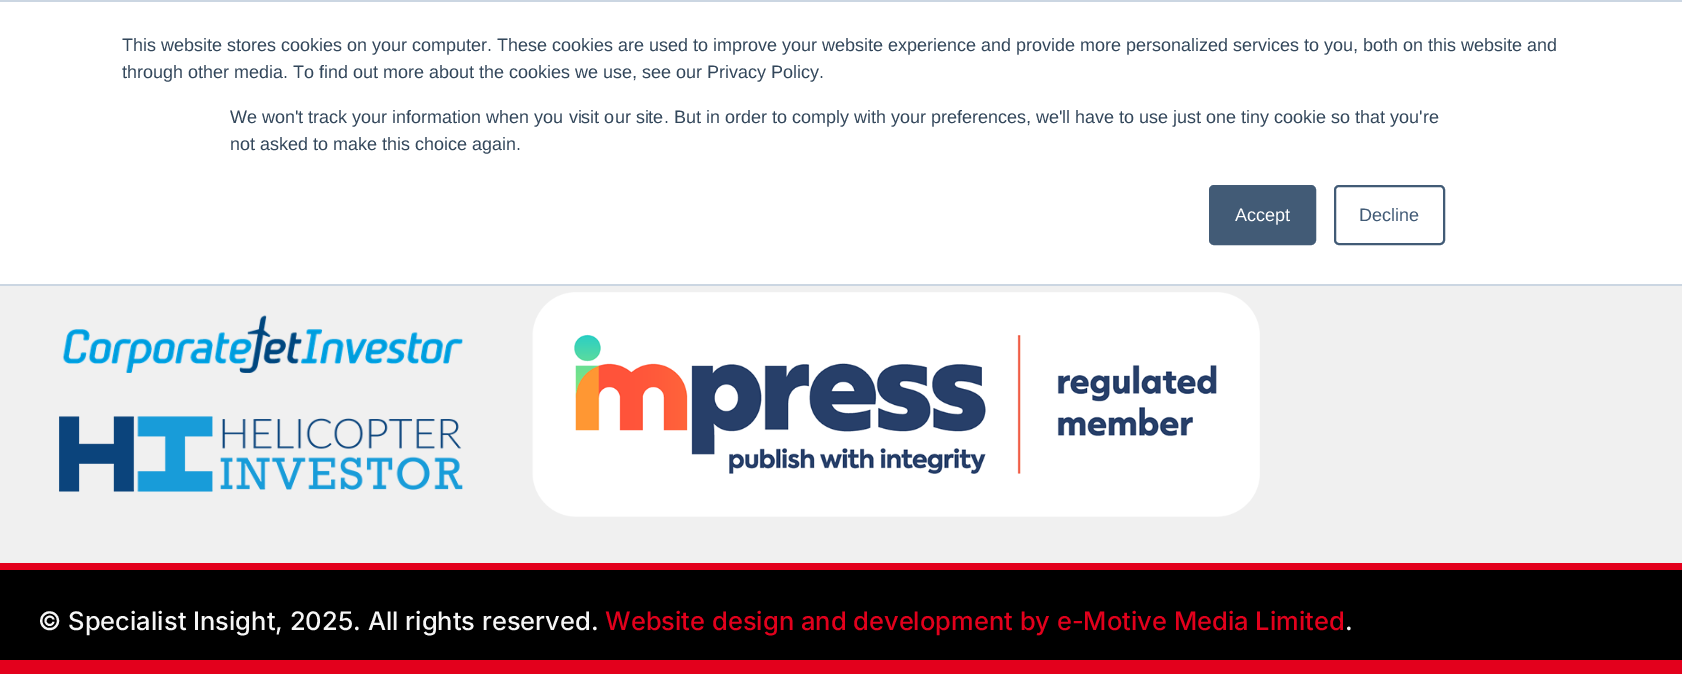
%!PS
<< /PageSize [1682 674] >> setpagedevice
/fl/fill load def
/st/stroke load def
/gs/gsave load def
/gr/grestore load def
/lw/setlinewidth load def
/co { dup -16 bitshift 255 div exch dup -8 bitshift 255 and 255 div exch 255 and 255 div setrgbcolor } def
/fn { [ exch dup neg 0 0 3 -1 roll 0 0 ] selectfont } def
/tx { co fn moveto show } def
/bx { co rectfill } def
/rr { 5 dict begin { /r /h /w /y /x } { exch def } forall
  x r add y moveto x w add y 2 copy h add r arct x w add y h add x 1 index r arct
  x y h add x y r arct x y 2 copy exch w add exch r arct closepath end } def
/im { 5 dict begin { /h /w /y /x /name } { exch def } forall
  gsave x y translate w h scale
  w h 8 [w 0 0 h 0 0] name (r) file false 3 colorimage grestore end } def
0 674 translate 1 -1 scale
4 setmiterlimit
0 0 1682 674 16#F0F0F0 bx
0 2 1682 282 16#FFFFFF bx
0 0 1682 2 16#CBD6E2 bx
0 284 1682 2 16#CBD6E2 bx
16#425B76 co
1210 186 105 58 4 rr gs fl gr
2 lw
st
1335 186 109 58 4 rr st
(media/1.raw) 59 315 404 177 im
(media/2.raw) 532 292 728 225 im
0 570 1682 90 16#000000 bx
0 563 1682 7 16#E3001C bx
0 660 1682 14 16#E3001C bx
(This website stores cookies on your computer. These cookies are used to improve your website experience and provide more personalized services to you, both on this website and) 122 51 /LiberationSans-Regular 18 16#33475B tx
(through other media. To find out more about the cookies we use, see our Privacy Policy.) 122 78 /LiberationSans-Regular 18 16#33475B tx
(We won't track your information when you visit our site. But in order to comply with your preferences, we'll have to use just one tiny cookie so that you're) 230 123 /LiberationSans-Regular 18 16#33475B tx
(not asked to make this choice again.) 230 150 /LiberationSans-Regular 18 16#33475B tx
(Accept) 1235 221 /LiberationSans-Regular 18 16#FFFFFF tx
(Decline) 1359 221 /LiberationSans-Regular 18 16#425B76 tx
(© Specialist Insight, 2025. All rights reserved.) 38 630 /Inter-Medium 25.5 16#F6F6F6 tx
(Website design and development by e-Motive Media Limited) 605 630 /Inter-Medium 25.5 16#E2001C tx
(.) 1345 630 /Inter-Medium 25.5 16#F6F6F6 tx
showpage
